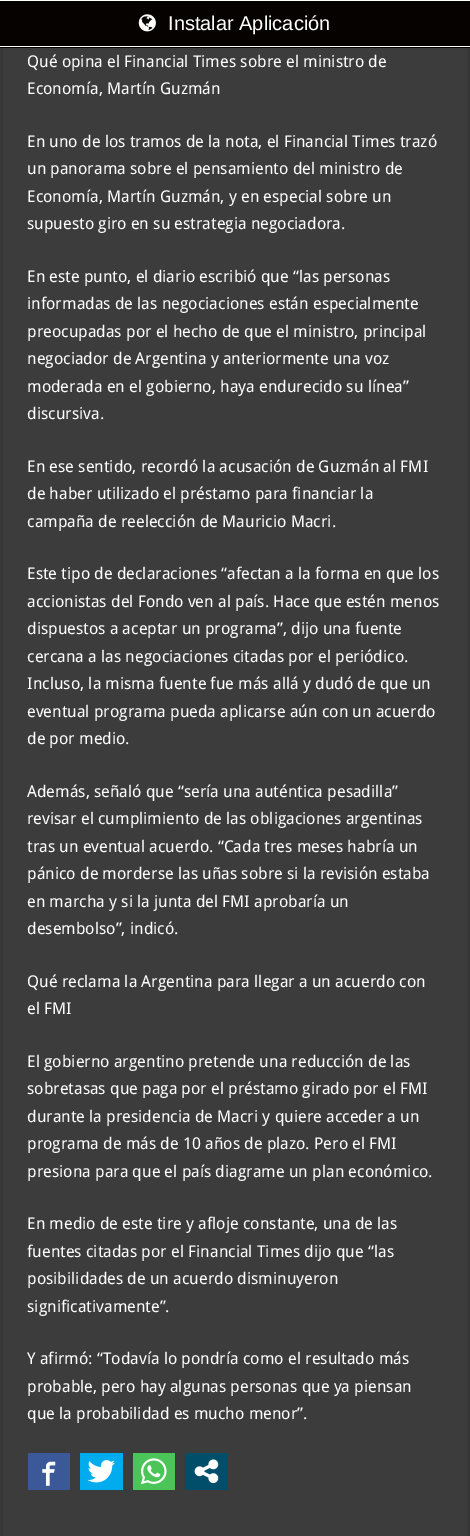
%!PS
<< /PageSize [470 1536] /PageUsesTransparency true >> setpagedevice
/co { dup -16 bitshift 255 div exch dup -8 bitshift 255 and 255 div exch 255 and 255 div setrgbcolor } def
/fn { [ exch dup neg 0 0 3 -1 roll 0 0 ] selectfont } def
/tx { co fn moveto show } def
/bx { co rectfill } def
/al { dup .setfillconstantalpha .setstrokeconstantalpha } def
/rr { 5 dict begin { /r /h /w /y /x } { exch def } forall
  x r add y moveto x w add y 2 copy h add r arct x w add y h add x 1 index r arct
  x y h add x y r arct x y 2 copy exch w add exch r arct closepath end } def
/sh { 12 dict begin { /a /b /q /h /w /y /x } { exch def } forall gsave /was 0 def
  9 -2 -9 { dup b mul 4 div /e exch def 1 sub .425 mul 2.718 exch exp 1 add a .99 .min exch div /now exch def
    1 1 now sub 1 was sub div sub al /was now def
    w h .min e 2 mul add 0 gt { x e sub y e sub w e 2 mul add h e 2 mul add
      q e add b .6 mul add w h .min 2 div e add .min 0 .max rr fill } if } for grestore end } def
/im { 5 dict begin { /h /w /y /x /name } { exch def } forall
  gsave x y translate w h scale
  w h 8 [w 0 0 h 0 0] name (r) file false 3 colorimage grestore end } def
0 .pushpdf14devicefilter
0 1536 translate 1 -1 scale
4 setmiterlimit
0 0 470 1536 16#3C3C3C bx
16#2A2A2A co
3 -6 465 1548 0 2 1 sh
0 1 470 47 16#060200 bx
0 0 470 1 16#FFFFFF bx
0 46 470 1 16#FFFFFF bx
(media/1.raw) 138 14 18 18 im
3 48 465 1488 16#3C3C3C bx
28 1453 42 37 16#3B5998 bx
(media/2.raw) 42 1461 14 25 im
80 1453 43 37 16#00ACED bx
(media/3.raw) 88 1460 27 23 im
133 1453 42 37 16#4BC557 bx
(media/4.raw) 141 1458 26 27 im
185 1453 43 37 16#014E6B bx
(media/5.raw) 194 1459 25 24 im
(Instalar Aplicación) 168 30 /LiberationSans-Regular 20 16#FFFFFF tx
(Qué opina el Financial Times sobre el ministro de) 27 67 /DroidSans-Regular 16.25 16#FFFFFF tx
(Economía, Martín Guzmán) 27 94 /DroidSans-Regular 16.25 16#FFFFFF tx
(En uno de los tramos de la nota, el Financial Times trazó) 27 147 /DroidSans-Regular 16.25 16#FFFFFF tx
(un panorama sobre el pensamiento del ministro de) 27 174 /DroidSans-Regular 16.25 16#FFFFFF tx
(Economía, Martín Guzmán, y en especial sobre un) 27 202 /DroidSans-Regular 16.25 16#FFFFFF tx
(supuesto giro en su estrategia negociadora.) 27 229 /DroidSans-Regular 16.25 16#FFFFFF tx
(En este punto, el diario escribió que “las personas) 27 282 /DroidSans-Regular 16.25 16#FFFFFF tx
(informadas de las negociaciones están especialmente) 27 309 /DroidSans-Regular 16.25 16#FFFFFF tx
(preocupadas por el hecho de que el ministro, principal) 27 337 /DroidSans-Regular 16.25 16#FFFFFF tx
(negociador de Argentina y anteriormente una voz) 27 364 /DroidSans-Regular 16.25 16#FFFFFF tx
(moderada en el gobierno, haya endurecido su línea”) 27 392 /DroidSans-Regular 16.25 16#FFFFFF tx
(discursiva.) 27 419 /DroidSans-Regular 16.25 16#FFFFFF tx
(En ese sentido, recordó la acusación de Guzmán al FMI) 27 472 /DroidSans-Regular 16.25 16#FFFFFF tx
(de haber utilizado el préstamo para financiar la) 27 499 /DroidSans-Regular 16.25 16#FFFFFF tx
(campaña de reelección de Mauricio Macri.) 27 527 /DroidSans-Regular 16.25 16#FFFFFF tx
(Este tipo de declaraciones “afectan a la forma en que los) 27 579 /DroidSans-Regular 16.25 16#FFFFFF tx
(accionistas del Fondo ven al país. Hace que estén menos) 27 607 /DroidSans-Regular 16.25 16#FFFFFF tx
(dispuestos a aceptar un programa”, dijo una fuente) 27 634 /DroidSans-Regular 16.25 16#FFFFFF tx
(cercana a las negociaciones citadas por el periódico.) 27 662 /DroidSans-Regular 16.25 16#FFFFFF tx
(Incluso, la misma fuente fue más allá y dudó de que un) 27 689 /DroidSans-Regular 16.25 16#FFFFFF tx
(eventual programa pueda aplicarse aún con un acuerdo) 27 717 /DroidSans-Regular 16.25 16#FFFFFF tx
(de por medio.) 27 744 /DroidSans-Regular 16.25 16#FFFFFF tx
(Además, señaló que “sería una auténtica pesadilla”) 27 797 /DroidSans-Regular 16.25 16#FFFFFF tx
(revisar el cumplimiento de las obligaciones argentinas) 27 824 /DroidSans-Regular 16.25 16#FFFFFF tx
(tras un eventual acuerdo. “Cada tres meses habría un) 27 852 /DroidSans-Regular 16.25 16#FFFFFF tx
(pánico de morderse las uñas sobre si la revisión estaba) 27 879 /DroidSans-Regular 16.25 16#FFFFFF tx
(en marcha y si la junta del FMI aprobaría un) 27 907 /DroidSans-Regular 16.25 16#FFFFFF tx
(desembolso”, indicó.) 27 934 /DroidSans-Regular 16.25 16#FFFFFF tx
(Qué reclama la Argentina para llegar a un acuerdo con) 27 987 /DroidSans-Regular 16.25 16#FFFFFF tx
(el FMI) 27 1014 /DroidSans-Regular 16.25 16#FFFFFF tx
(El gobierno argentino pretende una reducción de las) 27 1067 /DroidSans-Regular 16.25 16#FFFFFF tx
(sobretasas que paga por el préstamo girado por el FMI) 27 1094 /DroidSans-Regular 16.25 16#FFFFFF tx
(durante la presidencia de Macri y quiere acceder a un) 27 1122 /DroidSans-Regular 16.25 16#FFFFFF tx
(programa de más de 10 años de plazo. Pero el FMI) 27 1149 /DroidSans-Regular 16.25 16#FFFFFF tx
(presiona para que el país diagrame un plan económico.) 27 1177 /DroidSans-Regular 16.25 16#FFFFFF tx
(En medio de este tire y afloje constante, una de las) 27 1229 /DroidSans-Regular 16.25 16#FFFFFF tx
(fuentes citadas por el Financial Times dijo que “las) 27 1257 /DroidSans-Regular 16.25 16#FFFFFF tx
(posibilidades de un acuerdo disminuyeron) 27 1284 /DroidSans-Regular 16.25 16#FFFFFF tx
(significativamente”.) 27 1312 /DroidSans-Regular 16.25 16#FFFFFF tx
(Y afirmó: “Todavía lo pondría como el resultado más) 27 1364 /DroidSans-Regular 16.25 16#FFFFFF tx
(probable, pero hay algunas personas que ya piensan) 27 1392 /DroidSans-Regular 16.25 16#FFFFFF tx
(que la probabilidad es mucho menor”.) 27 1419 /DroidSans-Regular 16.25 16#FFFFFF tx
.poppdf14devicefilter showpage
